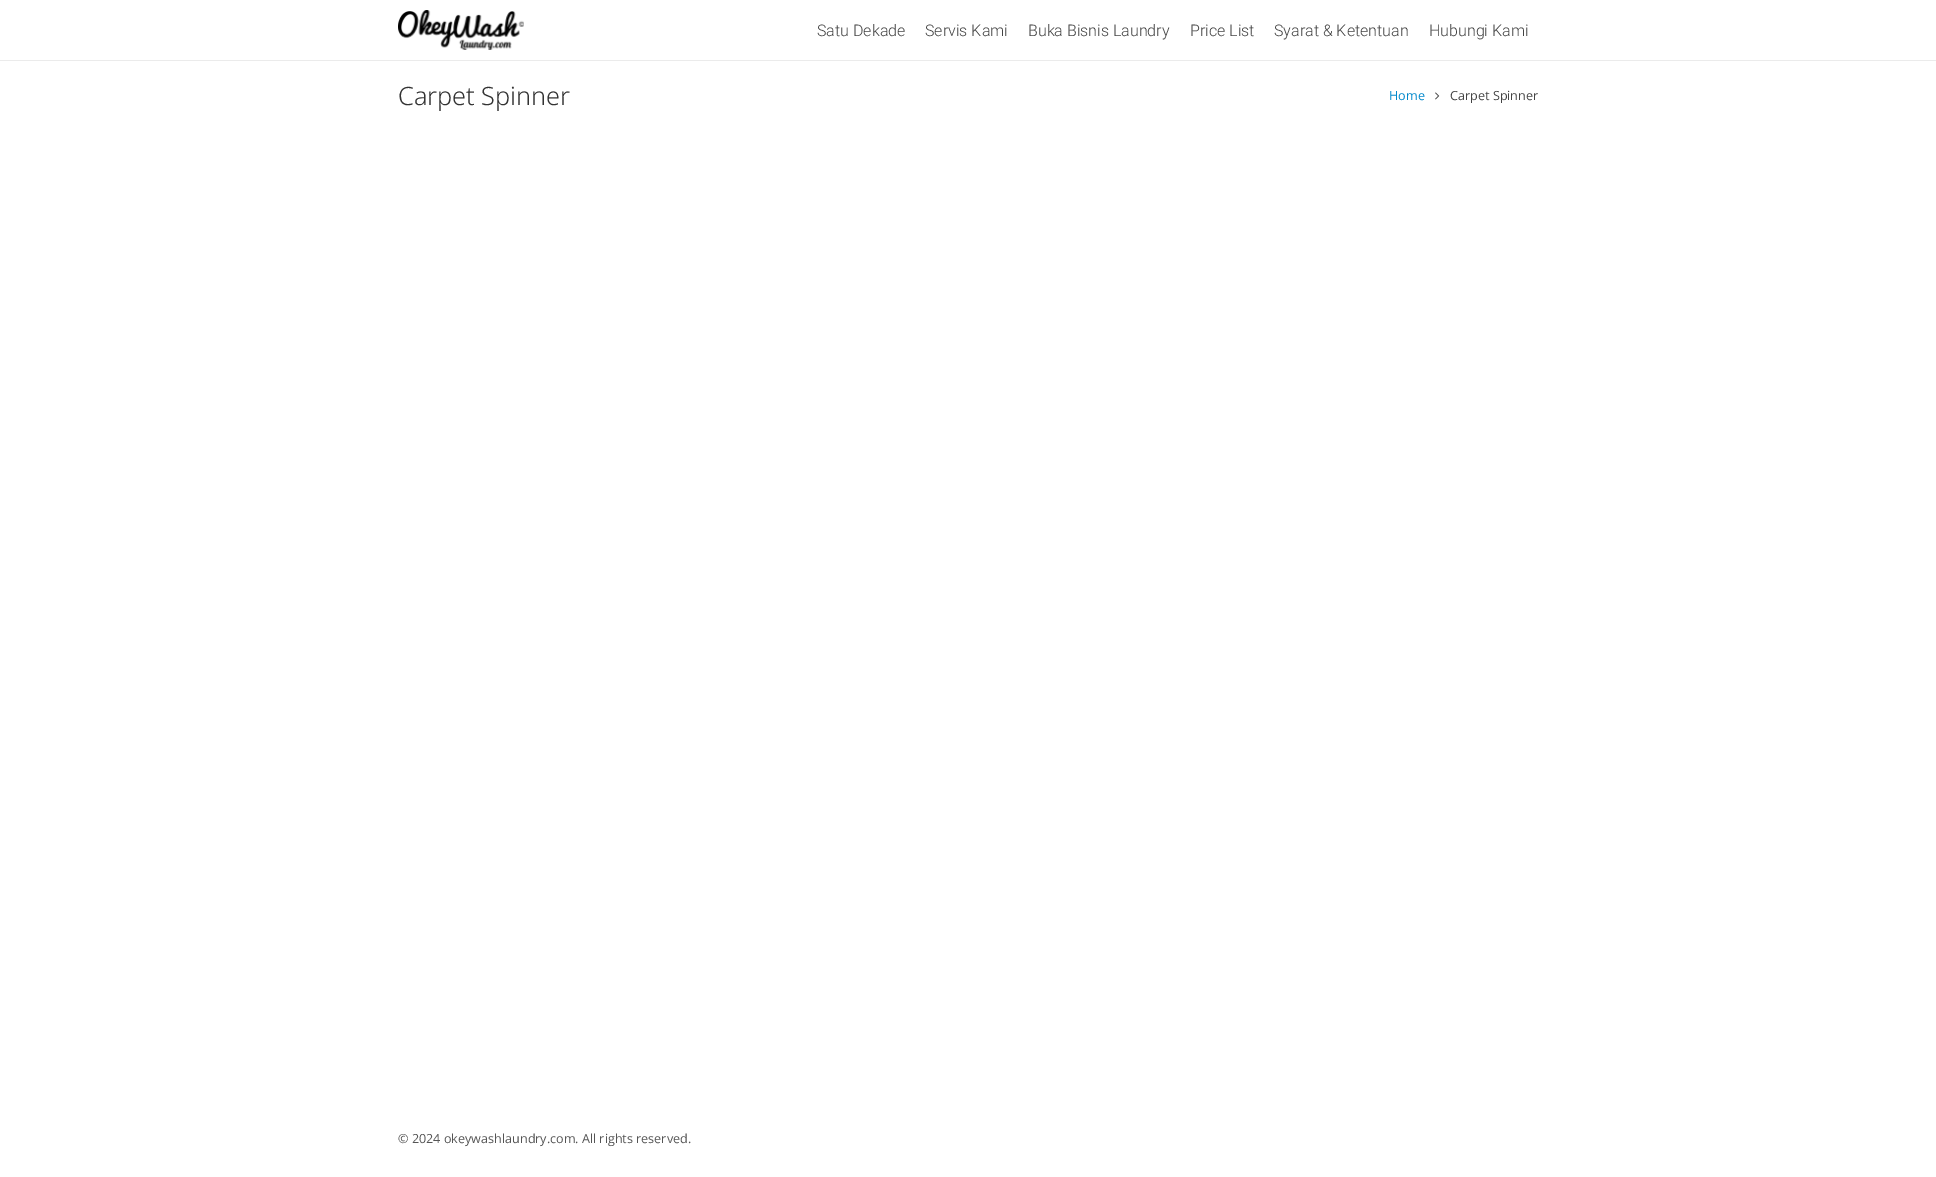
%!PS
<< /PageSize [1936 1177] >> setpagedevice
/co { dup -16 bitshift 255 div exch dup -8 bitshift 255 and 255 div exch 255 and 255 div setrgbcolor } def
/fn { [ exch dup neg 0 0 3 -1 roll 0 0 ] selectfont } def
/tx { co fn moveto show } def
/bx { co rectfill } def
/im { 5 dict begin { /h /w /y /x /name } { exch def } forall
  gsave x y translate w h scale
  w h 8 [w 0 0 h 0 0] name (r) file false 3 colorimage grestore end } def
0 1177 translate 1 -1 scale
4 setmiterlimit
0 0 1936 1177 16#FFFFFF bx
0 60 1936 1 16#EBEBEB bx
(media/1.raw) 398 10 126 40 im
(media/2.raw) 1435 92 5 8 im
(Satu Dekade) 817 36 /Roboto-Light 16 16#444444 tx
(Servis Kami) 925 36 /Roboto-Light 16 16#444444 tx
(Buka Bisnis Laundry) 1028 36 /Roboto-Light 16 16#444444 tx
(Price List) 1190 36 /Roboto-Light 16 16#444444 tx
(Syarat & Ketentuan) 1274 36 /Roboto-Light 16 16#444444 tx
(Hubungi Kami) 1429 36 /Roboto-Light 16 16#444444 tx
(Carpet Spinner) 398 105 /NotoSans-Light 25.25 16#333333 tx
(Home) 1389 100 /OpenSans-Regular 12.6 16#0088CC tx
(Carpet Spinner) 1450 100 /OpenSans-Regular 12.6 16#444444 tx
(© 2024 okeywashlaundry.com. All rights reserved.) 398 1143 /OpenSans-Regular 12.6 16#555555 tx
showpage
